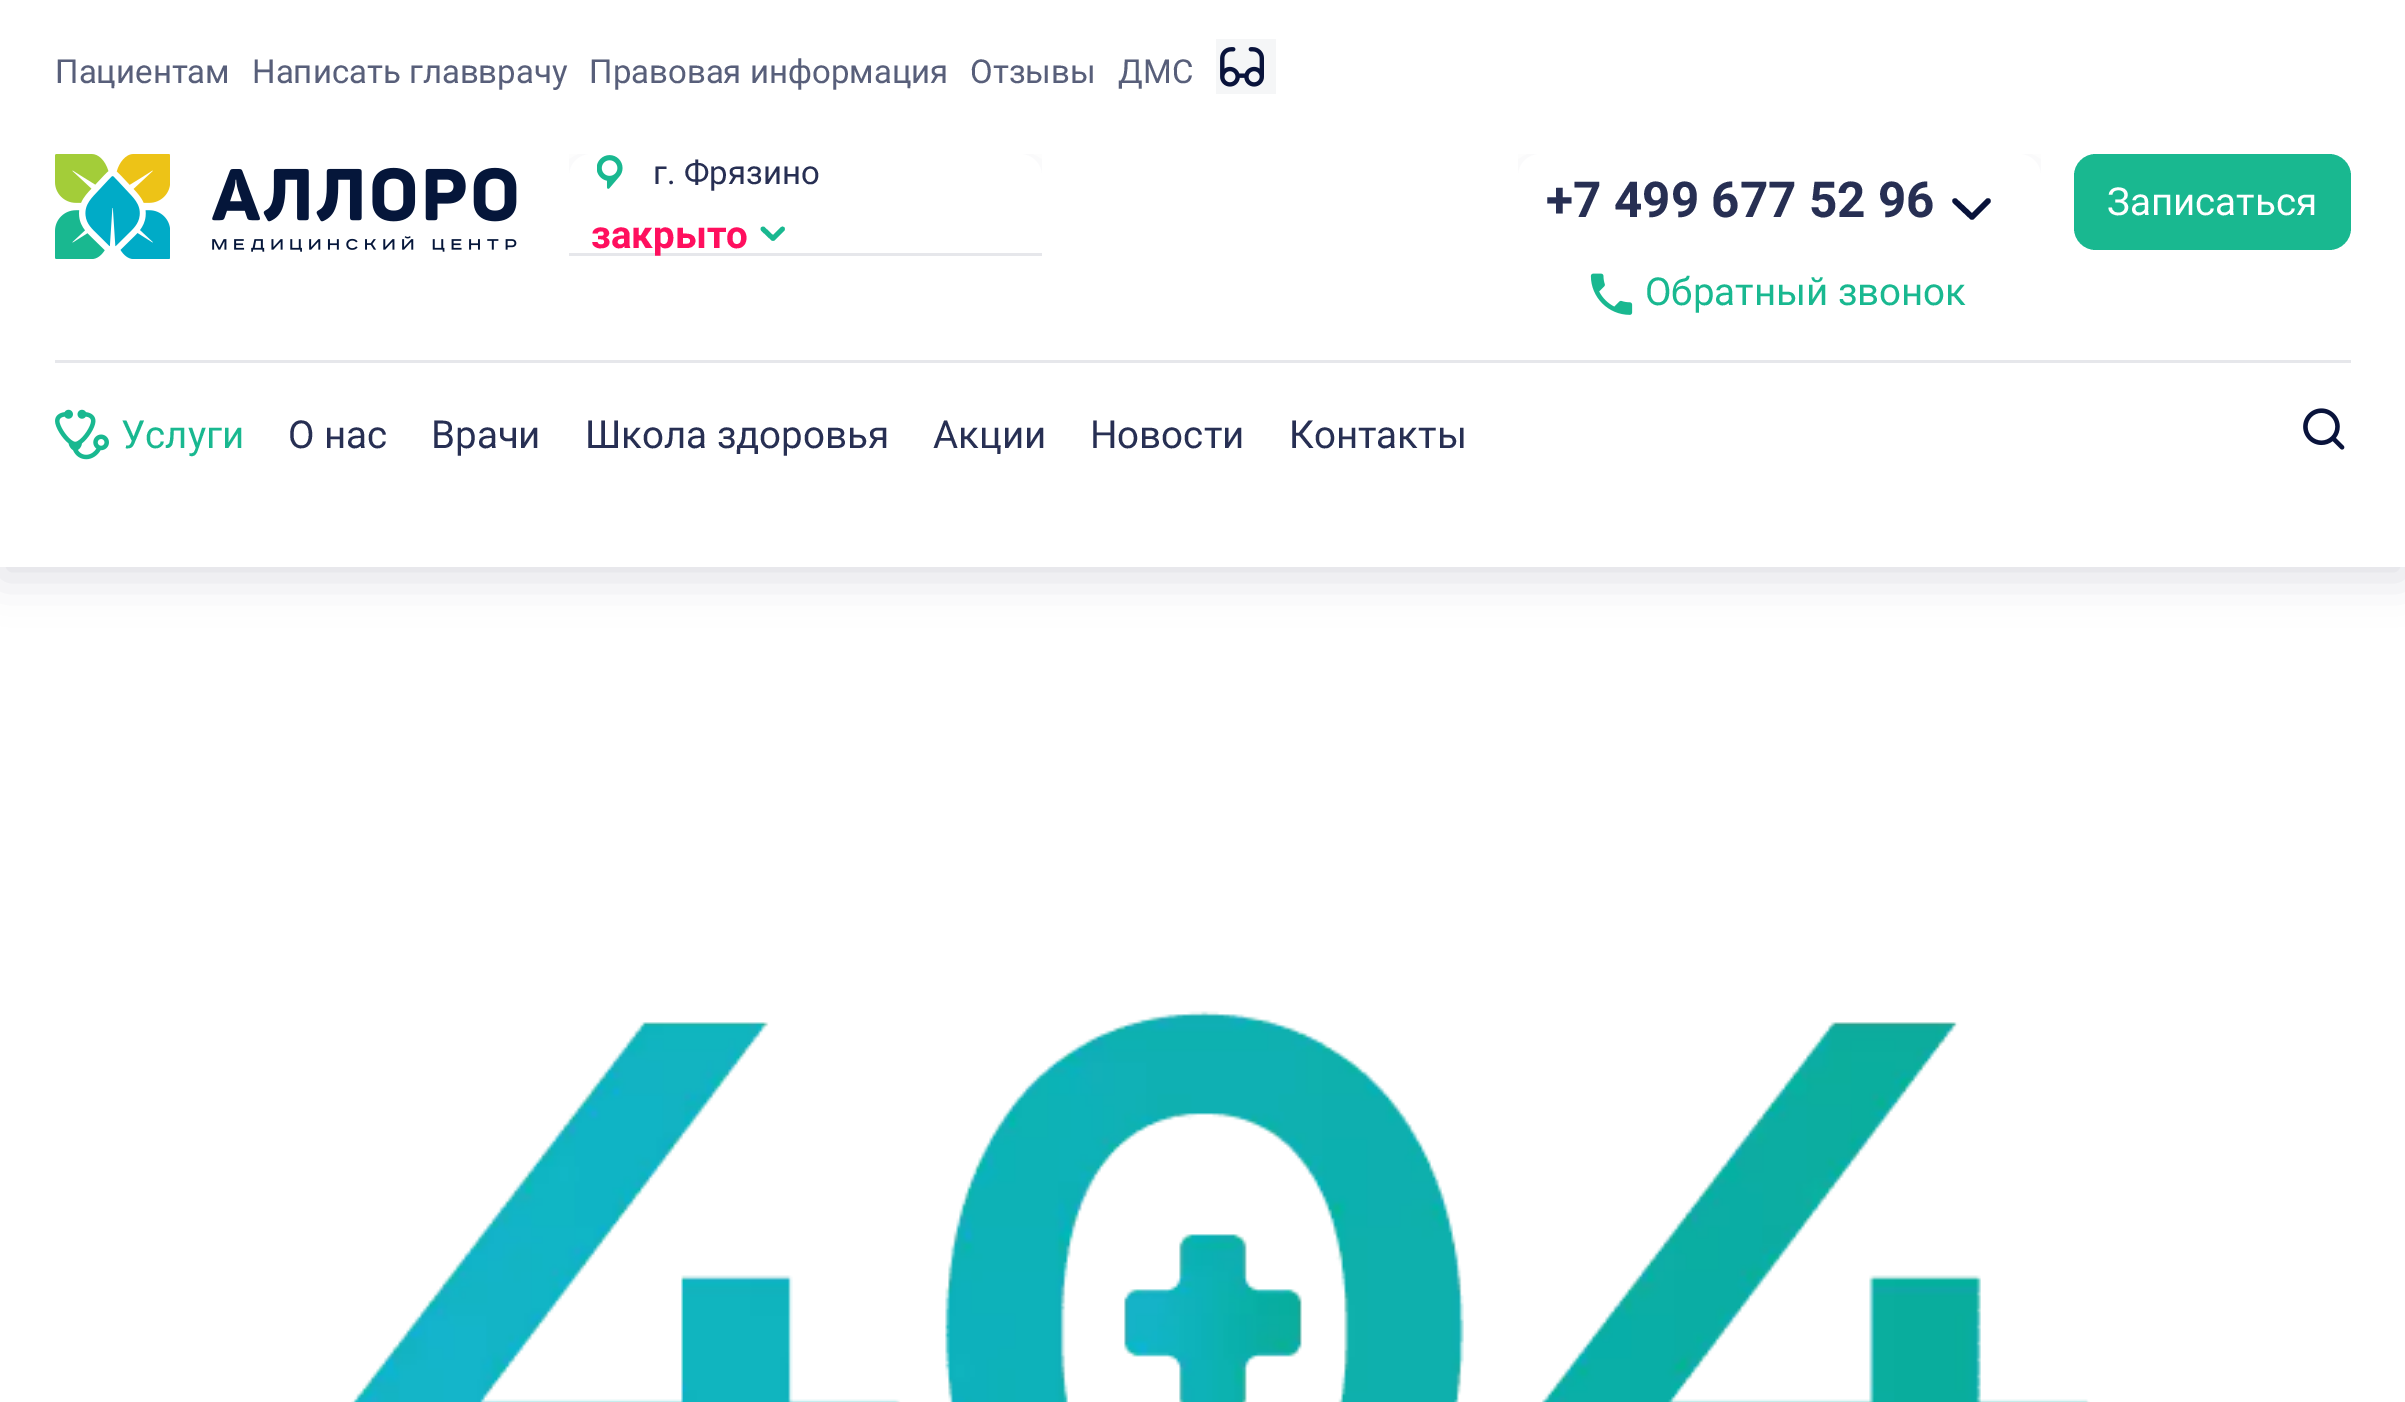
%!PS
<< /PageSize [2405 1402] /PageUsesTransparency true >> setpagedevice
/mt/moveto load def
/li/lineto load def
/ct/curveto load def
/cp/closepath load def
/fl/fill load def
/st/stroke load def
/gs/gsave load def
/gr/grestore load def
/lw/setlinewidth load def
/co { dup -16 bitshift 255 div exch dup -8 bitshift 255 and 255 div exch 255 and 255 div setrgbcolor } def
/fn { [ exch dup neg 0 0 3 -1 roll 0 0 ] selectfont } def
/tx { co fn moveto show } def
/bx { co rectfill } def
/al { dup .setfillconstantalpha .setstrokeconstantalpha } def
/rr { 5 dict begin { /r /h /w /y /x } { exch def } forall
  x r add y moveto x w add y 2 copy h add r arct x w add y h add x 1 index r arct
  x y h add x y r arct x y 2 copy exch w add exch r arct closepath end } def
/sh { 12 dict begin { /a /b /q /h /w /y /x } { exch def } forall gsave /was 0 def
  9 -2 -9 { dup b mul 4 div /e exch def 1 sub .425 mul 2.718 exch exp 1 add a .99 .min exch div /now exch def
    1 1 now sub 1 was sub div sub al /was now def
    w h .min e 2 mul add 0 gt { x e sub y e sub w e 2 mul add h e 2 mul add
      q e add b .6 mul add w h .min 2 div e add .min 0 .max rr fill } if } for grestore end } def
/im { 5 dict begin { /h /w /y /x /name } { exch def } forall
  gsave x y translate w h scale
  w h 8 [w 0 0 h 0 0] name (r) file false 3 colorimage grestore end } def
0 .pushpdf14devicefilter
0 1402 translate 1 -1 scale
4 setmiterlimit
0 0 2405 1402 16#FFFFFF bx
gs
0 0 mt 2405 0 li 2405 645 li 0 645 li cp 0 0 mt 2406 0 li 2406 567 li 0 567 li cp eoclip newpath
16#09133B co
0 11 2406 567 0 22 .14 sh
gr
1216 39 60 55 16#F5F6F7 bx
(media/1.raw) 1220 47 44 40 im
(media/2.raw) 55 154 462 105 im
55 360 2296 3 16#E6E7EB bx
gs
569 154 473 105 rectclip
16#09133B co
569 176 473 413 22 22 .14 sh
gr
16#FFFFFF co
591 154 mt 1020 154 li 1032 154 1042 164 1042 176 ct 1042 259 li 569 259 li 569 176 li 569 164 579 154 591 154 ct cp fl
(media/3.raw) 597 155 26 34 im
16#19B890 co
4.8 lw
1 setlinecap
1 setlinejoin
763 229 mt 773 238.5 li 782.5 229 li st
569 253 473 3 16#E6E7EB bx
16#19B890 co
2074 154 277 96 22 rr fl
(media/7.raw) 351 1011 1739 391 im
gs
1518 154 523 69 rectclip
16#09133B co
1518 176 523 985 22 22 .14 sh
gr
16#FFFFFF co
1540 154 mt 2019 154 li 2031 154 2041 164 2041 176 ct 2041 223 li 1518 223 li 1518 176 li 1518 164 1528 154 1540 154 ct cp fl
16#09133B co
5.5 lw
1955 201 mt 1972 217 li 1988 201 li st
(media/4.raw) 1590 273 43 42 im
(media/5.raw) 55 409 54 51 im
(media/6.raw) 2303 408 42 42 im
(Пациентам) 55 83 /Roboto-Regular 33 16#585F7A tx
(Написать главврачу) 252 83 /Roboto-Regular 33 16#585F7A tx
(Правовая информация) 589 83 /Roboto-Regular 33 16#585F7A tx
(Отзывы) 970 83 /Roboto-Regular 33 16#585F7A tx
(ДМС) 1118 83 /Roboto-Regular 33 16#585F7A tx
(г. Фрязино) 653 184 /Roboto-Regular 33 16#272F53 tx
(закрыто) 591 248 /Roboto-Bold 38.5 16#FF0F5E tx
(+7 499 677 52 96) 1546 217 /Roboto-Bold 49.5 16#272F53 tx
(Обратный звонок) 1645 305 /Roboto-Regular 38.5 16#19B890 tx
(Записаться) 2107 215 /Roboto-Regular 38.5 16#FFFFFF tx
(Услуги) 121 448 /Roboto-Regular 38.5 16#19B890 tx
(О нас) 288 448 /Roboto-Regular 38.5 16#272F53 tx
(Врачи) 431 448 /Roboto-Regular 38.5 16#272F53 tx
(Школа здоровья) 585 448 /Roboto-Regular 38.5 16#272F53 tx
(Акции) 933 448 /Roboto-Regular 38.5 16#272F53 tx
(Новости) 1090 448 /Roboto-Regular 38.5 16#272F53 tx
(Контакты) 1289 448 /Roboto-Regular 38.5 16#272F53 tx
.poppdf14devicefilter showpage
